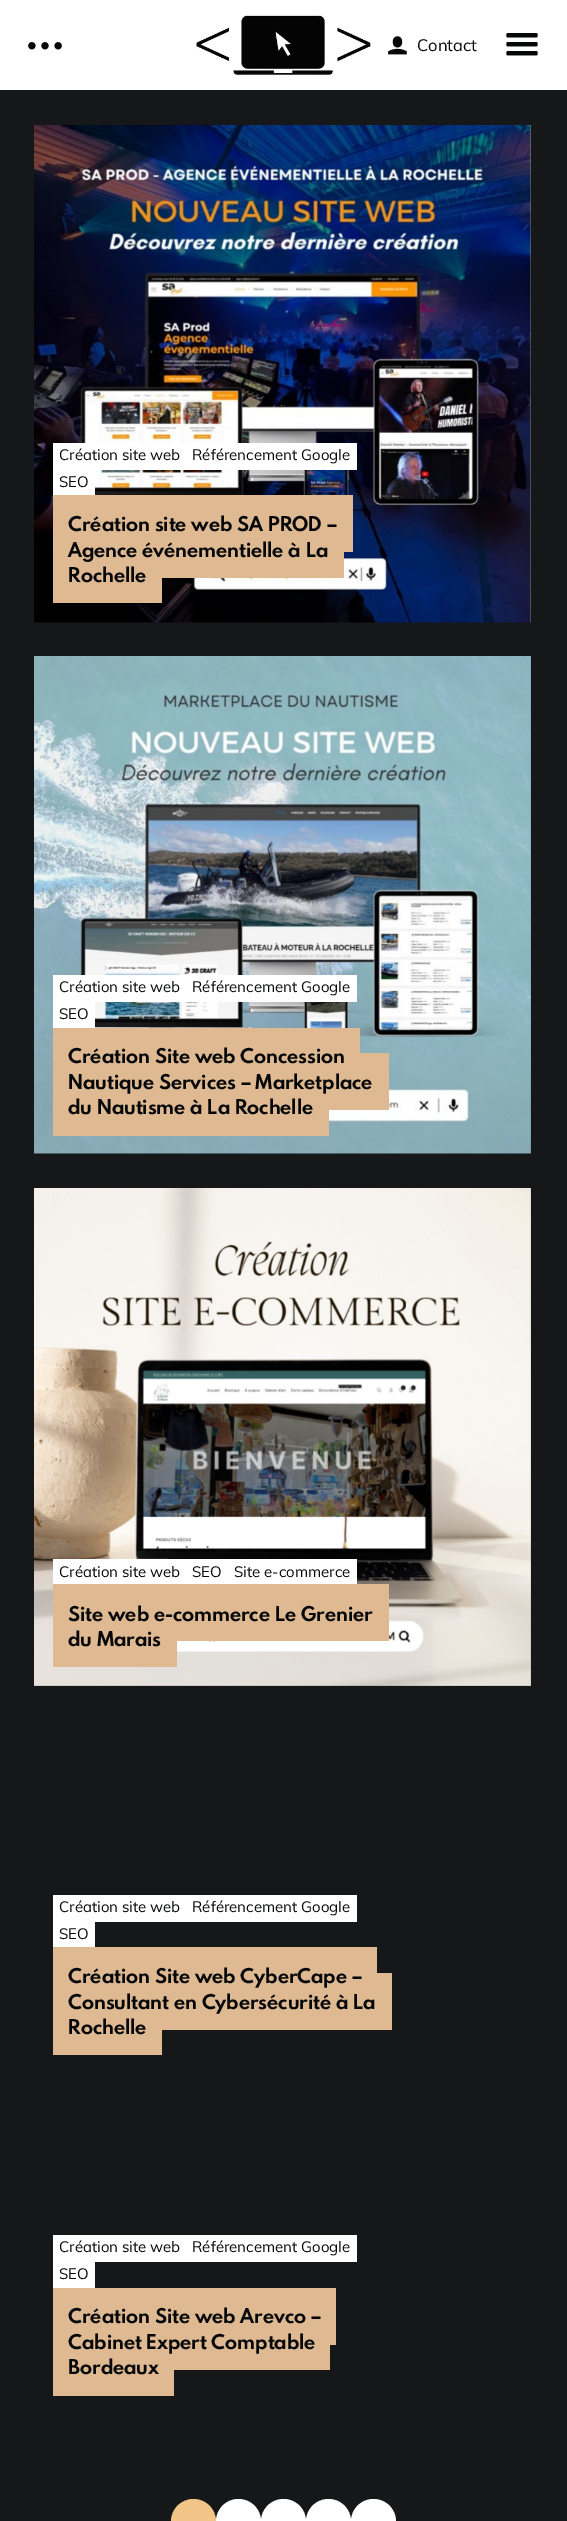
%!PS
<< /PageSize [567 2521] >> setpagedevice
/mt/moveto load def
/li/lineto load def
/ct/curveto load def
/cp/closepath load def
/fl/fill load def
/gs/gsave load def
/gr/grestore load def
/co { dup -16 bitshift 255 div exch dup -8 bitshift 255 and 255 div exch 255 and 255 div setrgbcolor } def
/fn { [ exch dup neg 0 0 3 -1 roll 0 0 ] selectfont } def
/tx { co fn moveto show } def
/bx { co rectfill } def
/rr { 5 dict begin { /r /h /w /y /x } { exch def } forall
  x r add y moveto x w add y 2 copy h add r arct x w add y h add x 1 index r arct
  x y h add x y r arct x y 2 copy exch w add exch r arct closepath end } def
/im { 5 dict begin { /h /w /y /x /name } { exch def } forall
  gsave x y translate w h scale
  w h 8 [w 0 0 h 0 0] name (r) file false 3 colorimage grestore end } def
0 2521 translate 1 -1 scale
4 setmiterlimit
0 0 567 2521 16#161718 bx
0 0 567 90 16#FFFFFF bx
(media/1.raw) 28 42 34 8 im
(media/2.raw) 196 15 175 60 im
(media/3.raw) 388 36 19 19 im
(media/4.raw) 506 33 32 23 im
(media/5.raw) 34 125 497 498 im
53 443 304 27 16#FFFFFF bx
53 470 42 25 16#FFFFFF bx
53 495 30 108 16#DEB992 bx
83 495 270 57 16#DEB992 bx
83 552 261 26 16#DEB992 bx
83 578 79 25 16#DEB992 bx
(media/6.raw) 34 656 497 498 im
53 975 304 27 16#FFFFFF bx
53 1002 42 26 16#FFFFFF bx
53 1028 30 108 16#DEB992 bx
83 1028 277 25 16#DEB992 bx
83 1053 306 57 16#DEB992 bx
83 1110 246 26 16#DEB992 bx
(media/7.raw) 34 1188 497 498 im
53 1559 304 25 16#FFFFFF bx
53 1584 30 83 16#DEB992 bx
83 1584 306 57 16#DEB992 bx
83 1641 94 26 16#DEB992 bx
53 1895 304 27 16#FFFFFF bx
53 1922 42 25 16#FFFFFF bx
53 1947 30 108 16#DEB992 bx
83 1947 294 26 16#DEB992 bx
83 1973 309 57 16#DEB992 bx
83 2030 79 25 16#DEB992 bx
53 2235 304 27 16#FFFFFF bx
53 2262 42 26 16#FFFFFF bx
53 2288 30 108 16#DEB992 bx
83 2288 253 57 16#DEB992 bx
83 2345 247 25 16#DEB992 bx
83 2370 91 26 16#DEB992 bx
gs
171 2499 45 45 22.5 rr clip newpath
16#F1C487 co
193.5 2499 mt 206 2499 216 2509 216 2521.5 ct 216 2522 li 171 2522 li 171 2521.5 li 171 2509 181 2499 193.5 2499 ct cp fl
gr
gs
216 2499 45 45 22.5 rr clip newpath
16#FFFFFF co
238.5 2499 mt 251 2499 261 2509 261 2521.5 ct 261 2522 li 216 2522 li 216 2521.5 li 216 2509 226 2499 238.5 2499 ct cp fl
gr
gs
261 2499 45 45 22.5 rr clip newpath
16#FFFFFF co
283.5 2499 mt 296 2499 306 2509 306 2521.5 ct 306 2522 li 261 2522 li 261 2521.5 li 261 2509 271 2499 283.5 2499 ct cp fl
gr
gs
306 2499 45 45 22.5 rr clip newpath
16#FFFFFF co
328.5 2499 mt 341 2499 351 2509 351 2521.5 ct 351 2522 li 306 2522 li 306 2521.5 li 306 2509 316 2499 328.5 2499 ct cp fl
gr
gs
351 2499 45 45 22.5 rr clip newpath
16#FFFFFF co
373.5 2499 mt 386 2499 396 2509 396 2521.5 ct 396 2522 li 351 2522 li 351 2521.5 li 351 2509 361 2499 373.5 2499 ct cp fl
gr
(Contact) 417 51 /Muli-Regular 16.5 16#060708 tx
(Création site web) 59 460 /Muli-Regular 15 16#060708 tx
(Référencement Google) 192 460 /Muli-Regular 15 16#060708 tx
(SEO) 59 487 /Muli-Regular 15 16#060708 tx
(Création site web SA PROD –) 68 531 /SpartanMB-Bold 18.1 16#060708 tx
(Agence événementielle à La) 68 557 /SpartanMB-Bold 18.1 16#060708 tx
(Rochelle) 68 582 /SpartanMB-Bold 18.1 16#060708 tx
(Création site web) 59 992 /Muli-Regular 15 16#060708 tx
(Référencement Google) 192 992 /Muli-Regular 15 16#060708 tx
(SEO) 59 1019 /Muli-Regular 15 16#060708 tx
(Création Site web Concession) 68 1063 /SpartanMB-Bold 18.1 16#060708 tx
(Nautique Services – Marketplace) 68 1089 /SpartanMB-Bold 18.1 16#060708 tx
(du Nautisme à La Rochelle) 68 1114 /SpartanMB-Bold 18.1 16#060708 tx
(Création site web) 59 1577 /Muli-Regular 15 16#060708 tx
(SEO) 192 1577 /Muli-Regular 15 16#060708 tx
(Site e-commerce) 234 1577 /Muli-Regular 15 16#060708 tx
(Site web e-commerce Le Grenier) 68 1621 /SpartanMB-Bold 18.1 16#060708 tx
(du Marais) 68 1646 /SpartanMB-Bold 18.1 16#060708 tx
(Création site web) 59 1912 /Muli-Regular 15 16#060708 tx
(Référencement Google) 192 1912 /Muli-Regular 15 16#060708 tx
(SEO) 59 1939 /Muli-Regular 15 16#060708 tx
(Création Site web CyberCape –) 68 1983 /SpartanMB-Bold 18.1 16#060708 tx
(Consultant en Cybersécurité à La) 68 2009 /SpartanMB-Bold 18.1 16#060708 tx
(Rochelle) 68 2034 /SpartanMB-Bold 18.1 16#060708 tx
(Création site web) 59 2252 /Muli-Regular 15 16#060708 tx
(Référencement Google) 192 2252 /Muli-Regular 15 16#060708 tx
(SEO) 59 2279 /Muli-Regular 15 16#060708 tx
(Création Site web Arevco –) 68 2323 /SpartanMB-Bold 18.1 16#060708 tx
(Cabinet Expert Comptable) 68 2349 /SpartanMB-Bold 18.1 16#060708 tx
(Bordeaux) 68 2374 /SpartanMB-Bold 18.1 16#060708 tx
showpage
